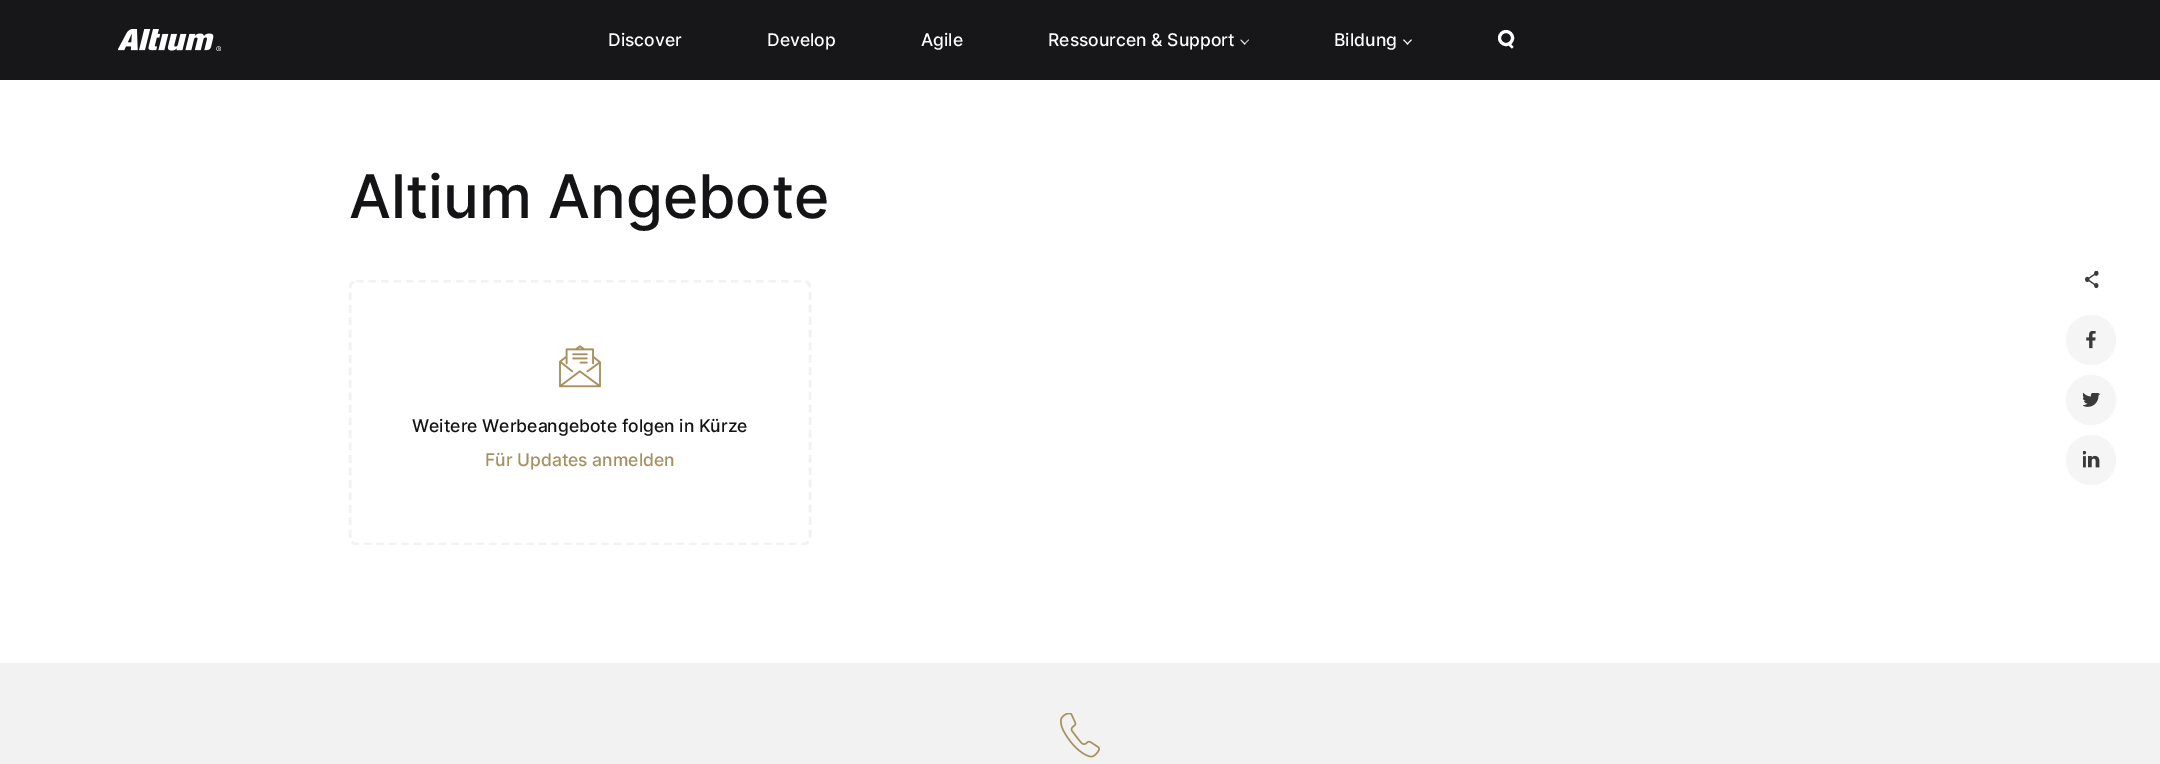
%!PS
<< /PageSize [2160 764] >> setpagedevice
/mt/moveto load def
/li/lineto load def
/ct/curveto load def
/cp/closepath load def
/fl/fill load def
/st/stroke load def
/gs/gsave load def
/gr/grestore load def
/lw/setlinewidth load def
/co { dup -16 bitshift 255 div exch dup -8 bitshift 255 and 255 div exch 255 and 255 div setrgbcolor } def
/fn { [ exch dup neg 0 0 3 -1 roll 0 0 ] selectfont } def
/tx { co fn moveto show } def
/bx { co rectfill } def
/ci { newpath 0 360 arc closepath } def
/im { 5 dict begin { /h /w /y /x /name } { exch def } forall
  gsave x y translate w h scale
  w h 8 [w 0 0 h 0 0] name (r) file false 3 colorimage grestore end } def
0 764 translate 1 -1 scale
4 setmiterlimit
0 0 2160 764 16#FFFFFF bx
0 0 2160 80 16#171719 bx
(media/1.raw) 118 29 103 22 im
16#FFFFFF co
1248.5 39.5 mt 1249 40 li 1244.5 44.5 li 1244 44 li cp fl
1241 39.5 mt 1245.5 44 li 1244.5 44.5 li 1240.5 40 li cp fl
1411 39.5 mt 1412 40 li 1407.5 44.5 li 1406.5 44 li cp fl
1404 39.5 mt 1408.5 44 li 1407.5 44.5 li 1403 40 li cp fl
3 lw
1506 38 6.5 ci st
1507.5 44.5 mt 1509.5 42.5 li 1513.5 47 li 1512 48.5 li cp fl
gs
330 280 500 265 rectclip
16#F2F2F2 co
2.5 lw
[7.5 5] 0 setdash
356 281 mt 804 281 li 807 281 810 284 810 287.5 ct 810 537.5 li 810 541 807 544 804 544 ct 356 544 li 353 544 350 541 350 537.5 ct 350 287.5 li 350 284 353 281 356 281 ct cp st
gr
(media/2.raw) 559 345 42 43 im
(media/3.raw) 2085 271 14 18 im
16#F5F5F5 co
2091 340 25 ci fl
(media/4.raw) 2086 331 10 18 im
2091 400 25 ci fl
(media/5.raw) 2083 393 18 14 im
2091 460 25 ci fl
(media/6.raw) 2083 451 17 17 im
0 663 2160 101 16#F2F2F2 bx
(media/7.raw) 1060 713 40 45 im
(Discover) 608 46 /Inter-Medium 17.5 16#FFFFFF tx
(Develop) 767 46 /Inter-Medium 17.5 16#FFFFFF tx
(Agile) 921 46 /Inter-Medium 17.5 16#FFFFFF tx
(Ressourcen & Support) 1048 46 /Inter-Medium 17.5 16#FFFFFF tx
(Bildung) 1334 46 /Inter-Medium 17.5 16#FFFFFF tx
(Altium Angebote) 349 218 /Inter-Medium 60 16#141416 tx
(Weitere Werbeangebote folgen in Kürze) 412 432 /Inter-Medium 17.5 16#141416 tx
(Für Updates anmelden) 485 466 /Inter-Medium 17.5 16#A5915F tx
showpage
